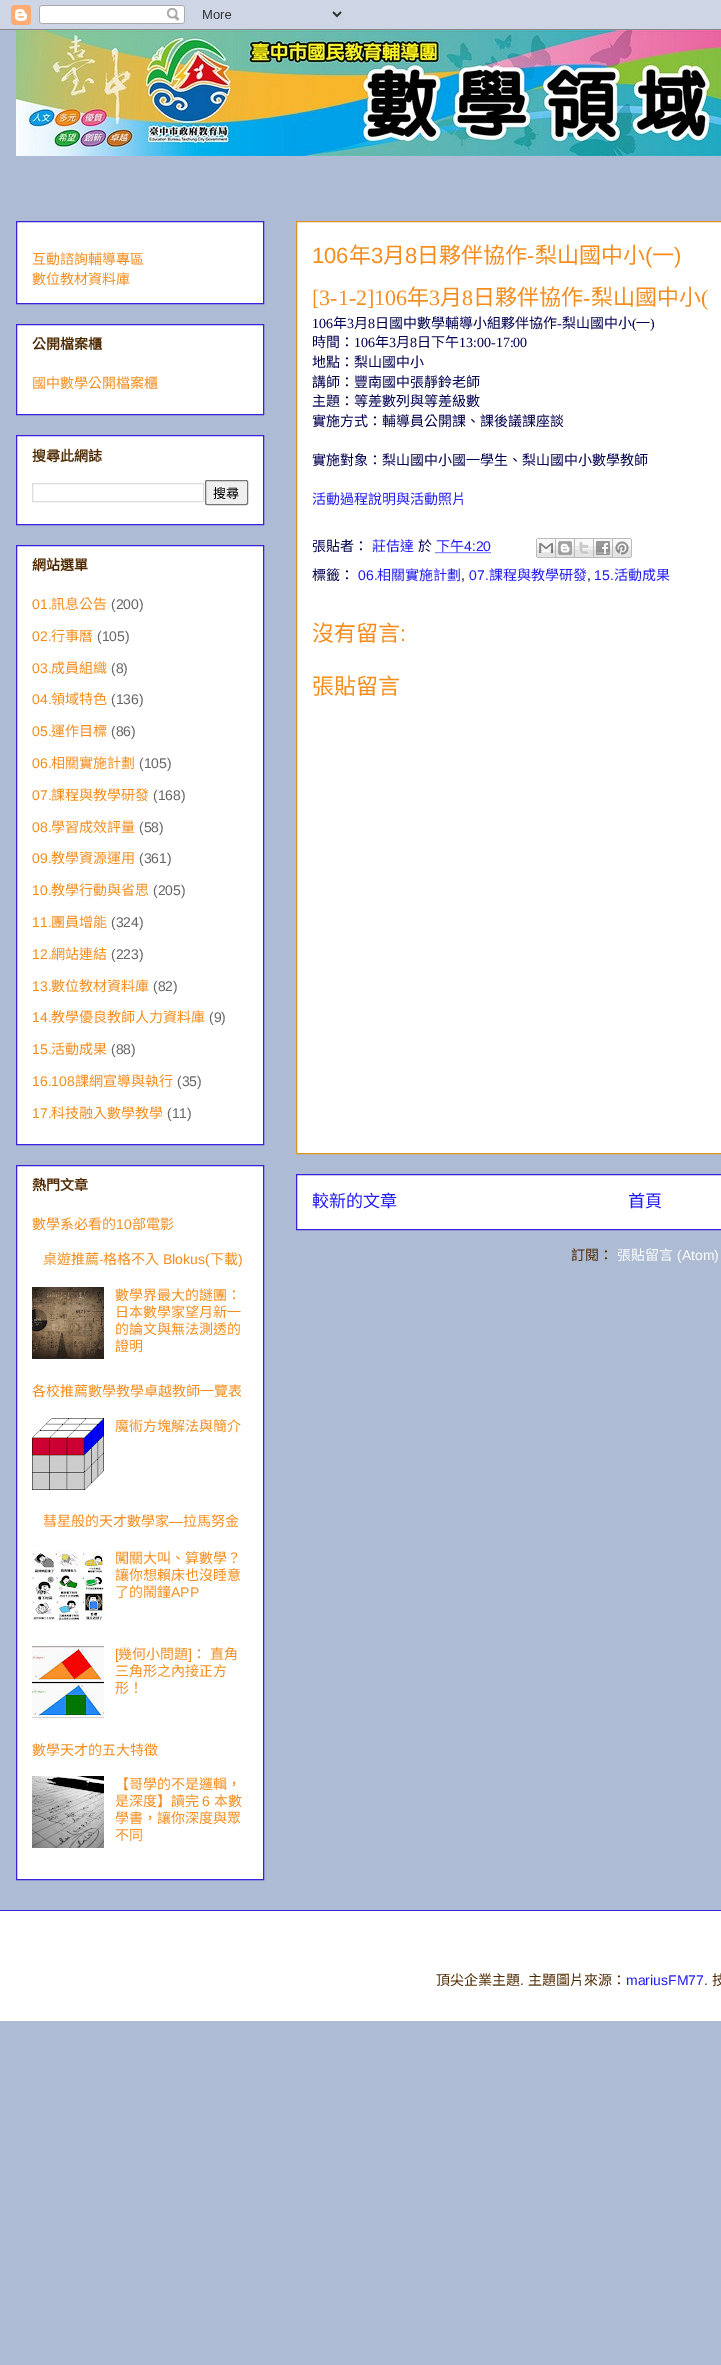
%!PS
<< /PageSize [721 2365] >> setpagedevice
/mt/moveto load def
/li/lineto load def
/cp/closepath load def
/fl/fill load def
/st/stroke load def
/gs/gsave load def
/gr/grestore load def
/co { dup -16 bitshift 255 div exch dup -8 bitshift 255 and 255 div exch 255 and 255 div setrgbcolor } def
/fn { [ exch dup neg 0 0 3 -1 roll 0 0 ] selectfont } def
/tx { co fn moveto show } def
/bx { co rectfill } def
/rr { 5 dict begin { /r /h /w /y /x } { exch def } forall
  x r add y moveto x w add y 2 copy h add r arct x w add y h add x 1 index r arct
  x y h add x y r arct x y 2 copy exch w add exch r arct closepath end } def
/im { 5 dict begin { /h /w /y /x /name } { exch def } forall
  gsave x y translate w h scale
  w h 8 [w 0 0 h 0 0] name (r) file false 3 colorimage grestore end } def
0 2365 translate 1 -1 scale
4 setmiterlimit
0 0 721 2365 16#ADBBD5 bx
(media/1.raw) 0 0 721 30 im
(media/2.raw) 16 30 705 126 im
16#FFFFFF co
16.5 221.5 mt 263.5 221.5 li 263.5 303.5 li 16.5 303.5 li cp gs fl gr
16#3822DC co
st
16#FFFFFF co
16.5 324.5 mt 263.5 324.5 li 263.5 414.5 li 16.5 414.5 li cp gs fl gr
16#3822DC co
st
16#FFFFFF co
16.5 435.5 mt 263.5 435.5 li 263.5 524.5 li 16.5 524.5 li cp gs fl gr
16#3822DC co
st
16#DDDDDD co
32.5 483.5 171 18 rectstroke
16#EFEFEF co
205.5 480.5 42 24 1.5 rr gs fl gr
16#767676 co
st
16#FFFFFF co
16.5 545.5 mt 263.5 545.5 li 263.5 1144.5 li 16.5 1144.5 li cp gs fl gr
16#3822DC co
st
16#FFFFFF co
16.5 1165.5 mt 263.5 1165.5 li 263.5 1879.5 li 16.5 1879.5 li cp gs fl gr
16#3822DC co
st
(media/3.raw) 32 1287 72 72 im
(media/4.raw) 32 1418 72 72 im
(media/5.raw) 32 1550 72 72 im
(media/6.raw) 32 1646 72 72 im
(media/7.raw) 32 1776 72 72 im
16#FFFFFF co
296.5 221.5 mt 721.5 221.5 li 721.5 1153.5 li 296.5 1153.5 li cp gs fl gr
16#DC9522 co
st
16#221CF3 co
[1 1] 0 setdash
435.5 552.5 mt 491 552.5 li st
(media/8.raw) 536 538 20 20 im
(media/9.raw) 556 538 19 20 im
(media/10.raw) 575 538 19 20 im
(media/11.raw) 594 538 19 20 im
(media/12.raw) 613 538 19 20 im
16#FFFFFF co
296.5 1174.5 mt 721.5 1174.5 li 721.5 1229.5 li 296.5 1229.5 li cp gs fl gr
16#3822DC co
[] 0 setdash
st
0 1911 721 110 16#FFFFFF bx
0 1910 721 1 16#3822DC bx
(互動諮詢輔導專區) 32 264 /NotoSansCJKTC-Regular 14 16#F48D1D tx
(數位教材資料庫) 32 284 /NotoSansCJKTC-Regular 14 16#F48D1D tx
(公開檔案櫃) 32 349 /NotoSansCJKTC-Bold 14 16#4E2800 tx
(國中數學公開檔案櫃) 32 388 /NotoSansCJKTC-Regular 14 16#F48D1D tx
(搜尋此網誌) 32 461 /NotoSansCJKTC-Bold 14 16#4E2800 tx
(搜尋) 213 498 /NotoSansCJKTC-Regular 13 16#000000 tx
(網站選單) 32 570 /NotoSansCJKTC-Bold 14 16#4E2800 tx
(01.) 32 609 /LiberationSans-Regular 14 16#F48D1D tx
(訊息公告) 51 609 /NotoSansCJKTC-Regular 14 16#F48D1D tx
(\(200\)) 111 609 /LiberationSans-Regular 14 16#666666 tx
(02.) 32 641 /LiberationSans-Regular 14 16#F48D1D tx
(行事曆) 51 641 /NotoSansCJKTC-Regular 14 16#F48D1D tx
(\(105\)) 97 641 /LiberationSans-Regular 14 16#666666 tx
(03.) 32 673 /LiberationSans-Regular 14 16#F48D1D tx
(成員組織) 51 673 /NotoSansCJKTC-Regular 14 16#F48D1D tx
(\(8\)) 111 673 /LiberationSans-Regular 14 16#666666 tx
(04.) 32 704 /LiberationSans-Regular 14 16#F48D1D tx
(領域特色) 51 704 /NotoSansCJKTC-Regular 14 16#F48D1D tx
(\(136\)) 111 704 /LiberationSans-Regular 14 16#666666 tx
(05.) 32 736 /LiberationSans-Regular 14 16#F48D1D tx
(運作目標) 51 736 /NotoSansCJKTC-Regular 14 16#F48D1D tx
(\(86\)) 111 736 /LiberationSans-Regular 14 16#666666 tx
(06.) 32 768 /LiberationSans-Regular 14 16#F48D1D tx
(相關實施計劃) 51 768 /NotoSansCJKTC-Regular 14 16#F48D1D tx
(\(105\)) 139 768 /LiberationSans-Regular 14 16#666666 tx
(07.) 32 800 /LiberationSans-Regular 14 16#F48D1D tx
(課程與教學研發) 51 800 /NotoSansCJKTC-Regular 14 16#F48D1D tx
(\(168\)) 153 800 /LiberationSans-Regular 14 16#666666 tx
(08.) 32 832 /LiberationSans-Regular 14 16#F48D1D tx
(學習成效評量) 51 832 /NotoSansCJKTC-Regular 14 16#F48D1D tx
(\(58\)) 139 832 /LiberationSans-Regular 14 16#666666 tx
(09.) 32 863 /LiberationSans-Regular 14 16#F48D1D tx
(教學資源運用) 51 863 /NotoSansCJKTC-Regular 14 16#F48D1D tx
(\(361\)) 139 863 /LiberationSans-Regular 14 16#666666 tx
(10.) 32 895 /LiberationSans-Regular 14 16#F48D1D tx
(教學行動與省思) 51 895 /NotoSansCJKTC-Regular 14 16#F48D1D tx
(\(205\)) 153 895 /LiberationSans-Regular 14 16#666666 tx
(11.) 32 927 /LiberationSans-Regular 14 16#F48D1D tx
(團員增能) 51 927 /NotoSansCJKTC-Regular 14 16#F48D1D tx
(\(324\)) 111 927 /LiberationSans-Regular 14 16#666666 tx
(12.) 32 959 /LiberationSans-Regular 14 16#F48D1D tx
(網站連結) 51 959 /NotoSansCJKTC-Regular 14 16#F48D1D tx
(\(223\)) 111 959 /LiberationSans-Regular 14 16#666666 tx
(13.) 32 991 /LiberationSans-Regular 14 16#F48D1D tx
(數位教材資料庫) 51 991 /NotoSansCJKTC-Regular 14 16#F48D1D tx
(\(82\)) 153 991 /LiberationSans-Regular 14 16#666666 tx
(14.) 32 1022 /LiberationSans-Regular 14 16#F48D1D tx
(教學優良教師人力資料庫) 51 1022 /NotoSansCJKTC-Regular 14 16#F48D1D tx
(\(9\)) 209 1022 /LiberationSans-Regular 14 16#666666 tx
(15.) 32 1054 /LiberationSans-Regular 14 16#F48D1D tx
(活動成果) 51 1054 /NotoSansCJKTC-Regular 14 16#F48D1D tx
(\(88\)) 111 1054 /LiberationSans-Regular 14 16#666666 tx
(16.108) 32 1086 /LiberationSans-Regular 14 16#F48D1D tx
(課網宣導與執行) 75 1086 /NotoSansCJKTC-Regular 14 16#F48D1D tx
(\(35\)) 177 1086 /LiberationSans-Regular 14 16#666666 tx
(17.) 32 1118 /LiberationSans-Regular 14 16#F48D1D tx
(科技融入數學教學) 51 1118 /NotoSansCJKTC-Regular 14 16#F48D1D tx
(\(11\)) 167 1118 /LiberationSans-Regular 14 16#666666 tx
(熱門文章) 32 1190 /NotoSansCJKTC-Bold 14 16#4E2800 tx
(數學系必看的) 32 1229 /NotoSansCJKTC-Regular 14 16#F48D1D tx
(10) 116 1229 /LiberationSans-Regular 14 16#F48D1D tx
(部電影) 132 1229 /NotoSansCJKTC-Regular 14 16#F48D1D tx
(桌遊推薦) 43 1264 /NotoSansCJKTC-Regular 14 16#F48D1D tx
(-) 99 1264 /LiberationSans-Regular 14 16#F48D1D tx
(格格不入) 103 1264 /NotoSansCJKTC-Regular 14 16#F48D1D tx
(Blokus\() 163 1264 /LiberationSans-Regular 14 16#F48D1D tx
(下載) 210 1264 /NotoSansCJKTC-Regular 14 16#F48D1D tx
(\)) 238 1264 /LiberationSans-Regular 14 16#F48D1D tx
(數學界最大的謎團：) 115 1300 /NotoSansCJKTC-Regular 14 16#F48D1D tx
(日本數學家望月新一) 115 1317 /NotoSansCJKTC-Regular 14 16#F48D1D tx
(的論文與無法測透的) 115 1334 /NotoSansCJKTC-Regular 14 16#F48D1D tx
(證明) 115 1351 /NotoSansCJKTC-Regular 14 16#F48D1D tx
(各校推薦數學教學卓越教師一覽表) 32 1396 /NotoSansCJKTC-Regular 14 16#F48D1D tx
(魔術方塊解法與簡介) 115 1431 /NotoSansCJKTC-Regular 14 16#F48D1D tx
(彗星般的天才數學家) 43 1526 /NotoSansCJKTC-Regular 14 16#F48D1D tx
(—) 169 1526 /LiberationSans-Regular 14 16#F48D1D tx
(拉馬努金) 183 1526 /NotoSansCJKTC-Regular 14 16#F48D1D tx
(闖關大叫、算數學？) 115 1563 /NotoSansCJKTC-Regular 14 16#F48D1D tx
(讓你想賴床也沒睡意) 115 1580 /NotoSansCJKTC-Regular 14 16#F48D1D tx
(了的鬧鐘) 115 1597 /NotoSansCJKTC-Regular 14 16#F48D1D tx
(APP) 171 1597 /LiberationSans-Regular 14 16#F48D1D tx
([) 115 1659 /LiberationSans-Regular 14 16#F48D1D tx
(幾何小問題) 118 1659 /NotoSansCJKTC-Regular 14 16#F48D1D tx
(]) 188 1659 /LiberationSans-Regular 14 16#F48D1D tx
/NotoSansCJKTC-Regular 14 fn
192 1659 mt 1 0 32 (： 直角) widthshow
(三角形之內接正方) 115 1676 /NotoSansCJKTC-Regular 14 16#F48D1D tx
(形！) 115 1693 /NotoSansCJKTC-Regular 14 16#F48D1D tx
(數學天才的五大特徵) 32 1755 /NotoSansCJKTC-Regular 14 16#F48D1D tx
(【哥學的不是邏輯，) 115 1789 /NotoSansCJKTC-Regular 14 16#F48D1D tx
(是深度】讀完) 115 1806 /NotoSansCJKTC-Regular 14 16#F48D1D tx
(6) 202 1806 /LiberationSans-Regular 14 16#F48D1D tx
(本數) 214 1806 /NotoSansCJKTC-Regular 14 16#F48D1D tx
(學書，讓你深度與眾) 115 1823 /NotoSansCJKTC-Regular 14 16#F48D1D tx
(不同) 115 1840 /NotoSansCJKTC-Regular 14 16#F48D1D tx
(106) 312 263 /LiberationSans-Regular 22 16#F48D1D tx
(年) 349 263 /NotoSansCJKTC-Regular 22 16#F48D1D tx
(3) 371 263 /LiberationSans-Regular 22 16#F48D1D tx
(月) 383 263 /NotoSansCJKTC-Regular 22 16#F48D1D tx
(8) 405 263 /LiberationSans-Regular 22 16#F48D1D tx
(日夥伴協作) 417 263 /NotoSansCJKTC-Regular 22 16#F48D1D tx
(梨山國中小) 535 263 /NotoSansCJKTC-Regular 22 16#F48D1D tx
(\() 645 263 /LiberationSans-Regular 22 16#F48D1D tx
(一) 652 263 /NotoSansCJKTC-Regular 22 16#F48D1D tx
(\)) 674 263 /LiberationSans-Regular 22 16#F48D1D tx
(-) 527 263 /LiberationSans-Regular 22 16#F48D1D tx
([3-1-2]106) 312 305 /LiberationSerif-Regular 22 16#F48D1D tx
(年) 407 305 /NotoSansCJKTC-Regular 22 16#F48D1D tx
(3) 429 305 /LiberationSerif-Regular 22 16#F48D1D tx
(月) 440 305 /NotoSansCJKTC-Regular 22 16#F48D1D tx
(8) 462 305 /LiberationSerif-Regular 22 16#F48D1D tx
(日夥伴協作) 473 305 /NotoSansCJKTC-Regular 22 16#F48D1D tx
(-) 583 305 /LiberationSerif-Regular 22 16#F48D1D tx
(梨山國中小) 591 305 /NotoSansCJKTC-Regular 22 16#F48D1D tx
(\() 701 305 /LiberationSerif-Regular 22 16#F48D1D tx
(106) 312 328 /LiberationSerif-Regular 14 16#01004E tx
(年) 333 328 /NotoSansCJKTC-Regular 14 16#01004E tx
(3) 347 328 /LiberationSerif-Regular 14 16#01004E tx
(月) 354 328 /NotoSansCJKTC-Regular 14 16#01004E tx
(8) 368 328 /LiberationSerif-Regular 14 16#01004E tx
(日國中數學輔導小組夥伴協作) 375 328 /NotoSansCJKTC-Regular 14 16#01004E tx
(梨山國中小) 562 328 /NotoSansCJKTC-Regular 14 16#01004E tx
(\() 632 328 /LiberationSerif-Regular 14 16#01004E tx
(一) 636 328 /NotoSansCJKTC-Regular 14 16#01004E tx
(\)) 650 328 /LiberationSerif-Regular 14 16#01004E tx
(-) 557 328 /LiberationSerif-Regular 14 16#01004E tx
(時間：) 312 347 /NotoSansCJKTC-Regular 14 16#01004E tx
(106) 354 347 /LiberationSerif-Regular 14 16#01004E tx
(年) 375 347 /NotoSansCJKTC-Regular 14 16#01004E tx
(3) 389 347 /LiberationSerif-Regular 14 16#01004E tx
(月) 396 347 /NotoSansCJKTC-Regular 14 16#01004E tx
(8) 410 347 /LiberationSerif-Regular 14 16#01004E tx
(日下午) 417 347 /NotoSansCJKTC-Regular 14 16#01004E tx
(13:00-17:00) 459 347 /LiberationSerif-Regular 14 16#01004E tx
(地點：梨山國中小) 312 367 /NotoSansCJKTC-Regular 14 16#01004E tx
(講師：豐南國中張靜鈴老師) 312 387 /NotoSansCJKTC-Regular 14 16#01004E tx
(主題：等差數列與等差級數) 312 406 /NotoSansCJKTC-Regular 14 16#01004E tx
(實施方式：輔導員公開課、課後議課座談) 312 426 /NotoSansCJKTC-Regular 14 16#01004E tx
(實施對象：梨山國中小國一學生、梨山國中小數學教師) 312 465 /NotoSansCJKTC-Regular 14 16#01004E tx
(活動過程說明與活動照片) 312 504 /NotoSansCJKTC-Regular 14 16#221CF3 tx
(張貼者：) 312 551 /NotoSansCJKTC-Regular 14 16#01004E tx
(莊佶達) 372 551 /NotoSansCJKTC-Regular 14 16#221CF3 tx
(於) 418 551 /NotoSansCJKTC-Regular 14 16#01004E tx
(下午) 436 551 /NotoSansCJKTC-Regular 14 16#221CF3 tx
(4:20) 464 551 /LiberationSans-Regular 14 16#221CF3 tx
(標籤：) 312 580 /NotoSansCJKTC-Regular 14 16#01004E tx
(06.) 358 580 /LiberationSans-Regular 14 16#221CF3 tx
(相關實施計劃) 377 580 /NotoSansCJKTC-Regular 14 16#221CF3 tx
(,) 461 580 /LiberationSans-Regular 14 16#01004E tx
(07.) 469 580 /LiberationSans-Regular 14 16#221CF3 tx
(課程與教學研發) 489 580 /NotoSansCJKTC-Regular 14 16#221CF3 tx
(,) 587 580 /LiberationSans-Regular 14 16#01004E tx
(15.) 594 580 /LiberationSans-Regular 14 16#221CF3 tx
(活動成果) 614 580 /NotoSansCJKTC-Regular 14 16#221CF3 tx
(沒有留言) 312 641 /NotoSansCJKTC-Regular 22 16#F48D1D tx
(:) 400 641 /LiberationSans-Regular 22 16#F48D1D tx
(張貼留言) 312 694 /NotoSansCJKTC-Regular 22 16#F48D1D tx
(較新的文章) 312 1207 /NotoSansCJKTC-Regular 17 16#221CF3 tx
(首頁) 628 1207 /NotoSansCJKTC-Regular 17 16#221CF3 tx
(訂閱：) 571 1260 /NotoSansCJKTC-Regular 14 16#4E2800 tx
(張貼留言) 617 1260 /NotoSansCJKTC-Regular 14 16#FFFFFF tx
(\(Atom\)) 677 1260 /LiberationSans-Regular 14 16#FFFFFF tx
(頂尖企業主題) 436 1985 /NotoSansCJKTC-Regular 14 16#4E2800 tx
(.) 520 1985 /LiberationSans-Regular 14 16#4E2800 tx
(主題圖片來源：) 528 1985 /NotoSansCJKTC-Regular 14 16#4E2800 tx
(mariusFM77) 626 1985 /LiberationSans-Regular 14 16#221CF3 tx
(.) 704 1985 /LiberationSans-Regular 14 16#4E2800 tx
(技) 712 1985 /NotoSansCJKTC-Regular 14 16#4E2800 tx
showpage
